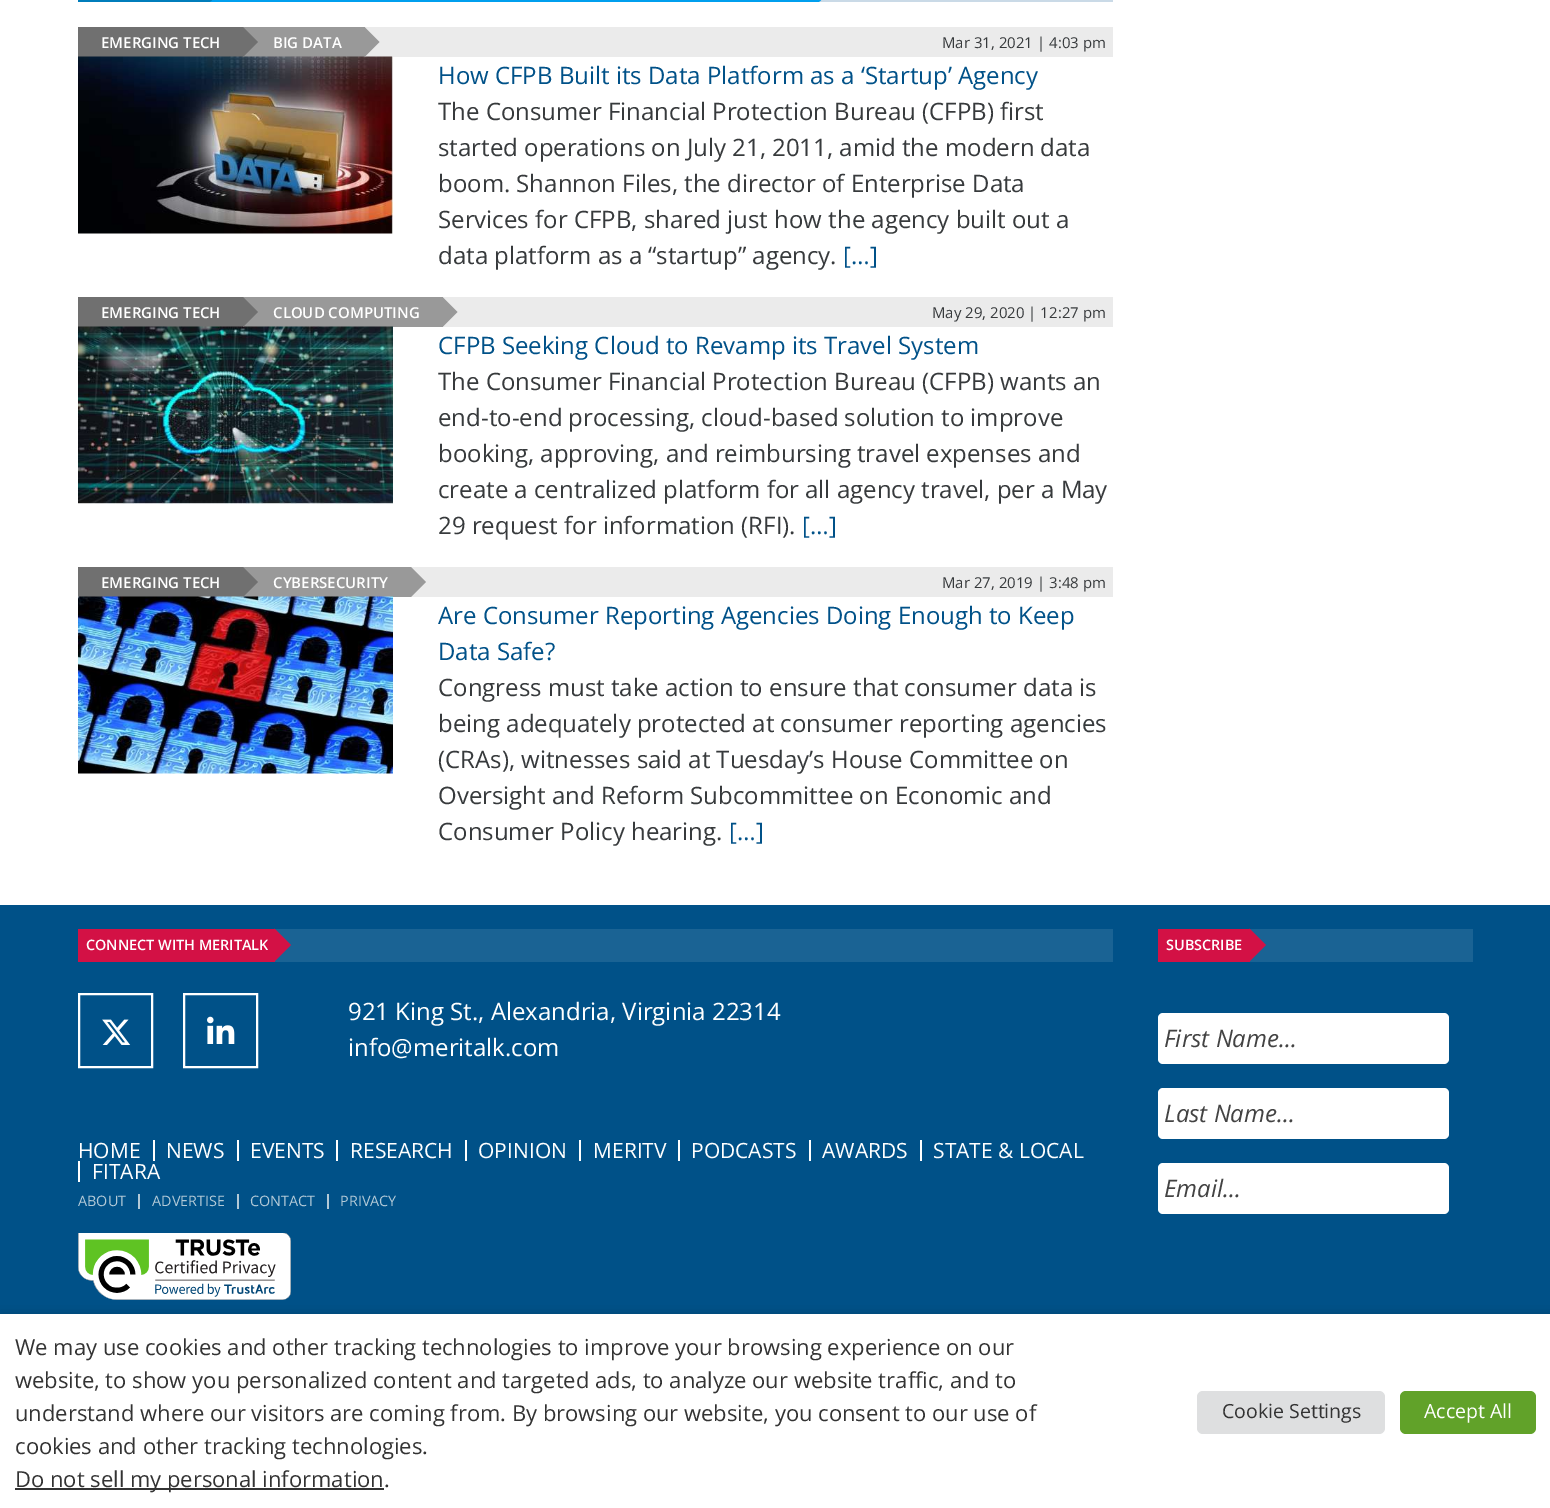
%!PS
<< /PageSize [1550 1508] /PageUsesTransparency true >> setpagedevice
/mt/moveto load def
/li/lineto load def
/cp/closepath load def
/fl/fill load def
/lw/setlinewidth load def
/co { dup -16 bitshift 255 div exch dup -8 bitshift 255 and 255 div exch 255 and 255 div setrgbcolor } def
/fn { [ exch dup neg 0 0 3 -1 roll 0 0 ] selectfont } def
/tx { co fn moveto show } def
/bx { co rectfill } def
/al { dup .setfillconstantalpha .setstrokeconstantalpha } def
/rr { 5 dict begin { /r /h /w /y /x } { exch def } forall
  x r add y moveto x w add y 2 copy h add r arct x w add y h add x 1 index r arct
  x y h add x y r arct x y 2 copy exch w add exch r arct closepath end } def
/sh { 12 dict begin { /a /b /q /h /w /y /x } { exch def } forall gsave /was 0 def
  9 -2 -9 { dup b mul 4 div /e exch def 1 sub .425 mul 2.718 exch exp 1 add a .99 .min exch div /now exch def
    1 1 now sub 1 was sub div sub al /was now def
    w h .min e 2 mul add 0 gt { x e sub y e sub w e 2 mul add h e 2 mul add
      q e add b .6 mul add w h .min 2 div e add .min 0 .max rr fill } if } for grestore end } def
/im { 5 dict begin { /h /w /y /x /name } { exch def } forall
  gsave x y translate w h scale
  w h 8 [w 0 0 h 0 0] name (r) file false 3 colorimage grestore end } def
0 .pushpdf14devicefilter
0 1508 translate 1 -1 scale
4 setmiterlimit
0 0 1550 1508 16#FFFFFF bx
819 0 294 2 16#CADAE7 bx
78 0 132 2 16#007DBB bx
210 0 609 2 16#009FEE bx
16#007DBB co
210 2 mt 210 -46 li 234 -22 li cp fl
16#009FEE co
819 2 mt 819 -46 li 843 -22 li cp fl
365 27 748 30 16#EBEBEB bx
78 27 165 30 16#707070 bx
243 27 122 30 16#999999 bx
(media/1.raw) 78 56 315 178 im
16#707070 co
243 57 mt 243 27 li 258 42 li cp fl
16#999999 co
364.5 57 mt 364.5 27 li 379.5 42 li cp fl
443 297 670 30 16#EBEBEB bx
78 297 165 30 16#707070 bx
243 297 200 30 16#999999 bx
(media/2.raw) 78 326 315 178 im
16#707070 co
243 327 mt 243 297 li 258 312 li cp fl
16#999999 co
442.5 327 mt 442.5 297 li 457.5 312 li cp fl
411 567 702 30 16#EBEBEB bx
78 567 165 30 16#707070 bx
243 567 168 30 16#999999 bx
(media/3.raw) 78 596 315 178 im
16#707070 co
243 597 mt 243 567 li 258 582 li cp fl
16#999999 co
411 597 mt 411 567 li 426 582 li cp fl
0 905 1550 409 16#005188 bx
275 929 838 33 16#1A6394 bx
78 929 197 33 16#D31145 bx
274.5 961.5 mt 274.5 928.5 li 291 945 li cp fl
16#FFFFFF co
2 lw
79 994 73 73 rectstroke
(media/4.raw) 102 1019 29 26 im
184 994 73 73 rectstroke
(media/5.raw) 207 1016 28 28 im
153 1140 2 21 16#FFFFFF bx
237 1140 2 21 16#FFFFFF bx
336 1140 2 21 16#FFFFFF bx
465 1140 2 21 16#FFFFFF bx
579 1140 2 21 16#FFFFFF bx
678 1140 2 21 16#FFFFFF bx
809 1140 2 21 16#FFFFFF bx
920 1140 2 21 16#FFFFFF bx
78 1161 2 21 16#FFFFFF bx
138 1194 2 15 16#B2C9D7 bx
237 1194 2 15 16#B2C9D7 bx
327 1194 2 15 16#B2C9D7 bx
(media/6.raw) 78 1233 213 67 im
1250 929 223 33 16#1A6394 bx
1158 929 92 33 16#D31145 bx
1249.5 961.5 mt 1249.5 928.5 li 1266 945 li cp fl
16#FFFFFF co
1158 1013 291 51 5 rr fl
1158 1088 291 51 5 rr fl
1158 1163 291 51 5 rr fl
16#000000 co
0 1322 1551 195 0 7.5 .5 sh
0 1314 1550 194 16#FFFFFF bx
15 1488 369 2 16#333333 bx
16#DEDFE0 co
1197 1391 188 43 6 rr fl
16#61A229 co
1400 1391 136 43 6 rr fl
(EMERGING TECH) 101 48 /OpenSans-SemiBold 15 16#FFFFFF tx
(BIG DATA) 273 48 /OpenSans-SemiBold 15 16#FFFFFF tx
(Mar 31, 2021 | 4:03 pm) 942 48 /OpenSans-Regular 15 16#373A3C tx
(How CFPB Built its Data Platform as a ‘Startup’ Agency) 438 84 /OpenSans-Regular 24 16#005188 tx
(The Consumer Financial Protection Bureau \(CFPB\) first) 438 120 /OpenSans-Regular 24 16#373A3C tx
(started operations on July 21, 2011, amid the modern data) 438 156 /OpenSans-Regular 24 16#373A3C tx
(boom. Shannon Files, the director of Enterprise Data) 438 192 /OpenSans-Regular 24 16#373A3C tx
(Services for CFPB, shared just how the agency built out a) 438 228 /OpenSans-Regular 24 16#373A3C tx
(data platform as a “startup” agency.) 438 264 /OpenSans-Regular 24 16#373A3C tx
([…]) 843 264 /OpenSans-Regular 24 16#005188 tx
(EMERGING TECH) 101 318 /OpenSans-SemiBold 15 16#FFFFFF tx
(CLOUD COMPUTING) 273 318 /OpenSans-SemiBold 15 16#FFFFFF tx
(May 29, 2020 | 12:27 pm) 932 318 /OpenSans-Regular 15 16#373A3C tx
(CFPB Seeking Cloud to Revamp its Travel System) 438 354 /OpenSans-Regular 24 16#005188 tx
(The Consumer Financial Protection Bureau \(CFPB\) wants an) 438 390 /OpenSans-Regular 24 16#373A3C tx
(end-to-end processing, cloud-based solution to improve) 438 426 /OpenSans-Regular 24 16#373A3C tx
(booking, approving, and reimbursing travel expenses and) 438 462 /OpenSans-Regular 24 16#373A3C tx
(create a centralized platform for all agency travel, per a May) 438 498 /OpenSans-Regular 24 16#373A3C tx
(29 request for information \(RFI\).) 438 534 /OpenSans-Regular 24 16#373A3C tx
([…]) 802 534 /OpenSans-Regular 24 16#005188 tx
(EMERGING TECH) 101 588 /OpenSans-SemiBold 15 16#FFFFFF tx
(CYBERSECURITY) 273 588 /OpenSans-SemiBold 15 16#FFFFFF tx
(Mar 27, 2019 | 3:48 pm) 942 588 /OpenSans-Regular 15 16#373A3C tx
(Are Consumer Reporting Agencies Doing Enough to Keep) 438 624 /OpenSans-Regular 24 16#005188 tx
(Data Safe?) 438 660 /OpenSans-Regular 24 16#005188 tx
(Congress must take action to ensure that consumer data is) 438 696 /OpenSans-Regular 24 16#373A3C tx
(being adequately protected at consumer reporting agencies) 438 732 /OpenSans-Regular 24 16#373A3C tx
(\(CRAs\), witnesses said at Tuesday’s House Committee on) 438 768 /OpenSans-Regular 24 16#373A3C tx
(Oversight and Reform Subcommittee on Economic and) 438 804 /OpenSans-Regular 24 16#373A3C tx
(Consumer Policy hearing.) 438 840 /OpenSans-Regular 24 16#373A3C tx
([…]) 729 840 /OpenSans-Regular 24 16#005188 tx
(CONNECT WITH MERITALK) 86 950 /OpenSans-SemiBold 14.4 16#FFFFFF tx
(921 King St., Alexandria, Virginia 22314) 348 1020 /OpenSans-Regular 24 16#FFFFFF tx
(info@meritalk.com) 348 1056 /OpenSans-Regular 24 16#FFFFFF tx
(HOME) 78 1158 /OpenSans-Regular 21 16#FFFFFF tx
(NEWS) 166 1158 /OpenSans-Regular 21 16#FFFFFF tx
(EVENTS) 250 1158 /OpenSans-Regular 21 16#FFFFFF tx
(RESEARCH) 350 1158 /OpenSans-Regular 21 16#FFFFFF tx
(OPINION) 478 1158 /OpenSans-Regular 21 16#FFFFFF tx
(MERITV) 593 1158 /OpenSans-Regular 21 16#FFFFFF tx
(PODCASTS) 691 1158 /OpenSans-Regular 21 16#FFFFFF tx
(AWARDS) 822 1158 /OpenSans-Regular 21 16#FFFFFF tx
(STATE & LOCAL) 933 1158 /OpenSans-Regular 21 16#FFFFFF tx
(FITARA) 92 1179 /OpenSans-Regular 21 16#FFFFFF tx
(ABOUT) 78 1206 /OpenSans-Regular 14.4 16#B2C9D7 tx
(ADVERTISE) 152 1206 /OpenSans-Regular 14.4 16#B2C9D7 tx
(CONTACT) 250 1206 /OpenSans-Regular 14.4 16#B2C9D7 tx
(PRIVACY) 340 1206 /OpenSans-Regular 14.4 16#B2C9D7 tx
(SUBSCRIBE) 1166 950 /OpenSans-SemiBold 14.4 16#FFFFFF tx
(First Name...) 1164 1047 /OpenSans-Italic 24 16#434343 tx
(Last Name...) 1164 1122 /OpenSans-Italic 24 16#434343 tx
(Email...) 1164 1197 /OpenSans-Italic 24 16#434343 tx
(We may use cookies and other tracking technologies to improve your browsing experience on our) 15 1355 /OpenSans-Regular 22 16#333333 tx
(website, to show you personalized content and targeted ads, to analyze our website traffic, and to) 15 1388 /OpenSans-Regular 22 16#333333 tx
(understand where our visitors are coming from. By browsing our website, you consent to our use of) 15 1421 /OpenSans-Regular 22 16#333333 tx
(cookies and other tracking technologies.) 15 1454 /OpenSans-Regular 22 16#333333 tx
(Do not sell my personal information.) 15 1487 /OpenSans-Regular 22 16#333333 tx
(Cookie Settings) 1222 1418 /OpenSans-Regular 19.5 16#333333 tx
(Accept All) 1424 1418 /OpenSans-Regular 19.5 16#FFFFFF tx
.poppdf14devicefilter showpage
